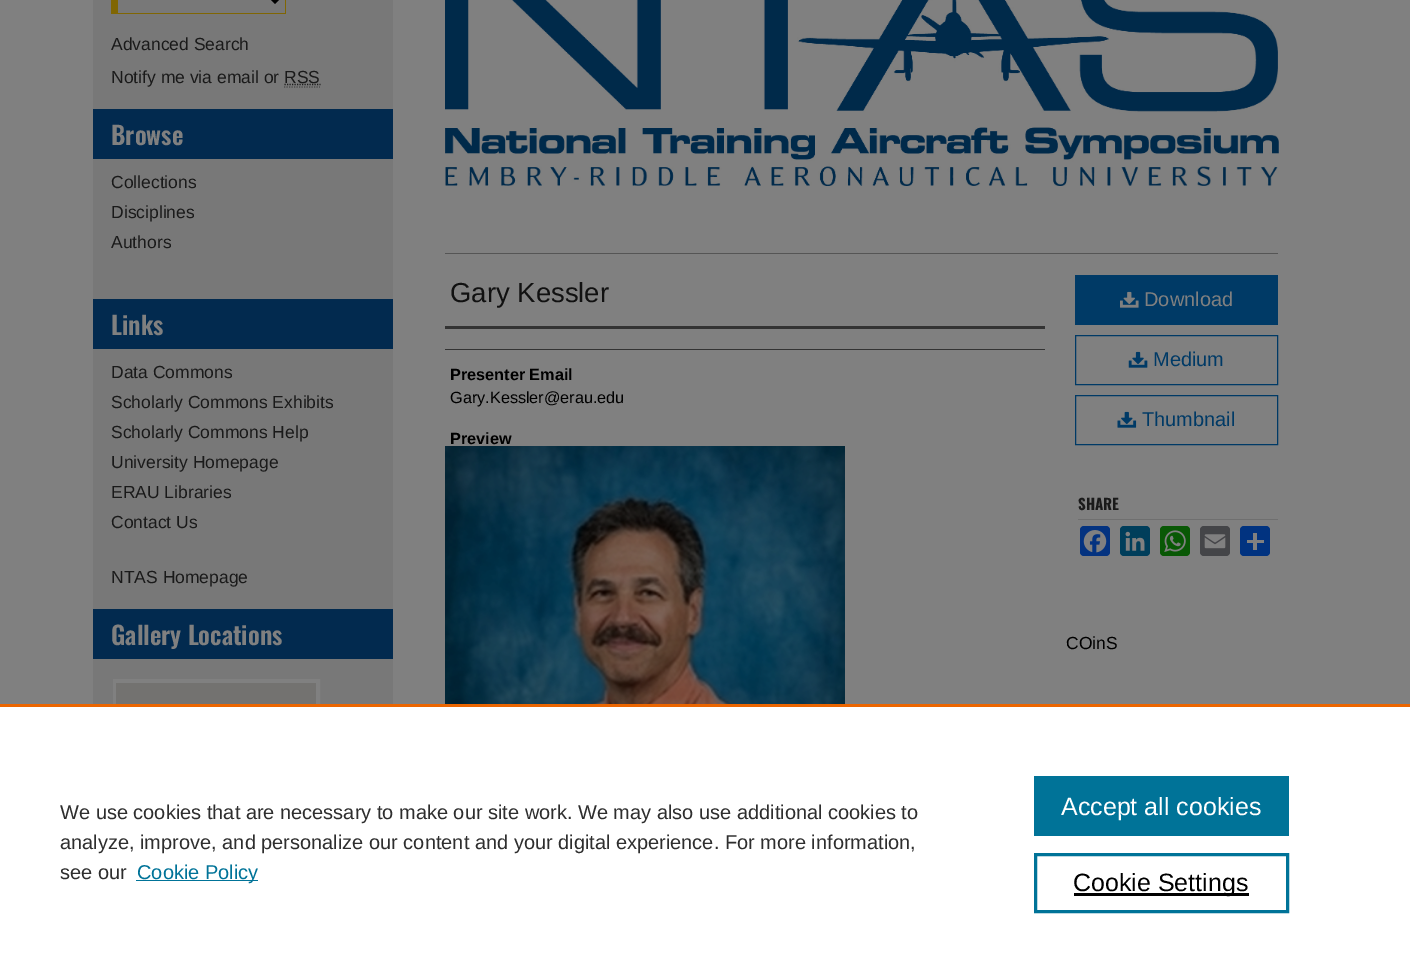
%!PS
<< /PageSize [1410 978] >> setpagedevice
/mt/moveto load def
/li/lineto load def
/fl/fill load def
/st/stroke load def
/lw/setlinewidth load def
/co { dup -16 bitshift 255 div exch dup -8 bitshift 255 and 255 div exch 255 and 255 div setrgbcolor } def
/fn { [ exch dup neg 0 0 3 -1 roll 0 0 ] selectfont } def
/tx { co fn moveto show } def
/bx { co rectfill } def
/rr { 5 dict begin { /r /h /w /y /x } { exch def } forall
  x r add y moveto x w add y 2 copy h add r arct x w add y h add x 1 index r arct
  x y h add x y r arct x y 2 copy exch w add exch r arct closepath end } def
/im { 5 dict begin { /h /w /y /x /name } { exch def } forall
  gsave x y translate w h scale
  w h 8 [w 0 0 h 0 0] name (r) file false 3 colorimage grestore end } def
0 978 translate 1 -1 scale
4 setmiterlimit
0 0 1410 978 16#808080 bx
93 0 300 704 16#787878 bx
285 0 1 14 16#806603 bx
111 13 175 1 16#806603 bx
111 0 7 14 16#806603 bx
16#000000 co
2.5 lw
270 -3 mt 275 2 li 280 -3 li st
16#4D4D4D co
1.2 lw
[1.25 1.25] 0 setdash
284 87 mt 320 87 li st
16#1E1E1E co
284.5 84.5 mt 320.5 84.5 li st
93 109 300 50 16#022A4F bx
93 299 300 50 16#022A4F bx
93 609 300 50 16#022A4F bx
16#808080 co
4 lw
[] 0 setdash
115 681 203 203 rectstroke
116 683 200 21 16#737270 bx
(media/1.raw) 445 0 834 186 im
445 253 833 1 16#555555 bx
445 326 600 3 16#333333 bx
445 349 600 1 16#333333 bx
(media/2.raw) 445 446 400 258 im
1075 275 203 50 16#003A66 bx
(media/3.raw) 1120 291 19 17 im
1 lw
1075.5 335.5 202 49 rectstroke
(media/4.raw) 1128 351 20 17 im
1075.5 395.5 202 49 rectstroke
(media/5.raw) 1117 411 20 17 im
1078 519 200 1 16#6F6F6F bx
16#043380 co
1080 526 30 30 4 rr fl
(media/6.raw) 1083 530 24 23 im
16#003E5B co
1120 526 30 30 4 rr fl
(media/7.raw) 1125 531 20 20 im
16#095805 co
1160 526 30 30 4 rr fl
(media/8.raw) 1164 530 22 22 im
16#444548 co
1200 526 30 30 4 rr fl
(media/9.raw) 1204 534 22 15 im
16#013380 co
1240 526 30 30 4 rr fl
1253 533 4 17 16#808080 bx
1247 540 17 3 16#808080 bx
0 707 1410 271 16#FFFFFF bx
0 704 1410 3 16#EB6500 bx
136 880 122 1 16#007398 bx
1034 776 255 60 16#007398 bx
3 lw
1035.5 854.5 252 57 rectstroke
1074 893 175 3 16#000000 bx
(Advanced Search) 111 50 /LiberationSans-Regular 17.5 16#1A1A1A tx
(Notify me via email or) 111 83 /LiberationSans-Regular 17.5 16#1A1A1A tx
(RSS) 284 83 /LiberationSans-Regular 17.5 16#1A1A1A tx
(Browse) 111 145 /Oswald-SemiBold 25 16#808080 tx
(Collections) 111 188 /LiberationSans-Regular 17.5 16#1A1A1A tx
(Disciplines) 111 218 /LiberationSans-Regular 17.5 16#1A1A1A tx
(Authors) 111 248 /LiberationSans-Regular 17.5 16#1A1A1A tx
(Links) 111 335 /Oswald-SemiBold 25 16#808080 tx
(Data Commons) 111 378 /LiberationSans-Regular 17.5 16#1A1A1A tx
(Scholarly Commons Exhibits) 111 408 /LiberationSans-Regular 17.5 16#1A1A1A tx
(Scholarly Commons Help) 111 438 /LiberationSans-Regular 17.5 16#1A1A1A tx
(University Homepage) 111 468 /LiberationSans-Regular 17.5 16#1A1A1A tx
(ERAU Libraries) 111 498 /LiberationSans-Regular 17.5 16#1A1A1A tx
(Contact Us) 111 528 /LiberationSans-Regular 17.5 16#1A1A1A tx
(NTAS Homepage) 111 583 /LiberationSans-Regular 17.5 16#1A1A1A tx
(Gallery Locations) 111 645 /Oswald-SemiBold 25 16#808080 tx
(Gary Kessler) 450 302 /LiberationSans-Regular 27.5 16#111111 tx
(Presenter Email) 450 380 /LiberationSans-Bold 16.25 16#000000 tx
(Gary.Kessler@erau.edu) 450 403 /LiberationSans-Regular 16.25 16#000000 tx
(Preview) 450 444 /LiberationSans-Bold 16.25 16#000000 tx
(Download) 1144 306 /LiberationSans-Regular 20 16#808080 tx
(Medium) 1153 366 /LiberationSans-Regular 20 16#003A66 tx
(Thumbnail) 1142 426 /LiberationSans-Regular 20 16#003A66 tx
(SHARE) 1078 510 /Oswald-Bold 15 16#1A1A1A tx
(COinS) 1066 649 /LiberationSans-Regular 17.5 16#000000 tx
(We use cookies that are necessary to make our site work. We may also use additional cookies to) 60 819 /LiberationSans-Regular 20 16#2E2E2E tx
(analyze, improve, and personalize our content and your digital experience. For more information,) 60 849 /LiberationSans-Regular 20 16#2E2E2E tx
(see our) 60 879 /LiberationSans-Regular 20 16#2E2E2E tx
(Cookie Policy) 137 879 /LiberationSans-Regular 20 16#007398 tx
(Accept all cookies) 1061 815 /LiberationSans-Regular 25 16#FFFFFF tx
(Cookie Settings) 1073 891 /LiberationSans-Regular 25 16#000000 tx
showpage
